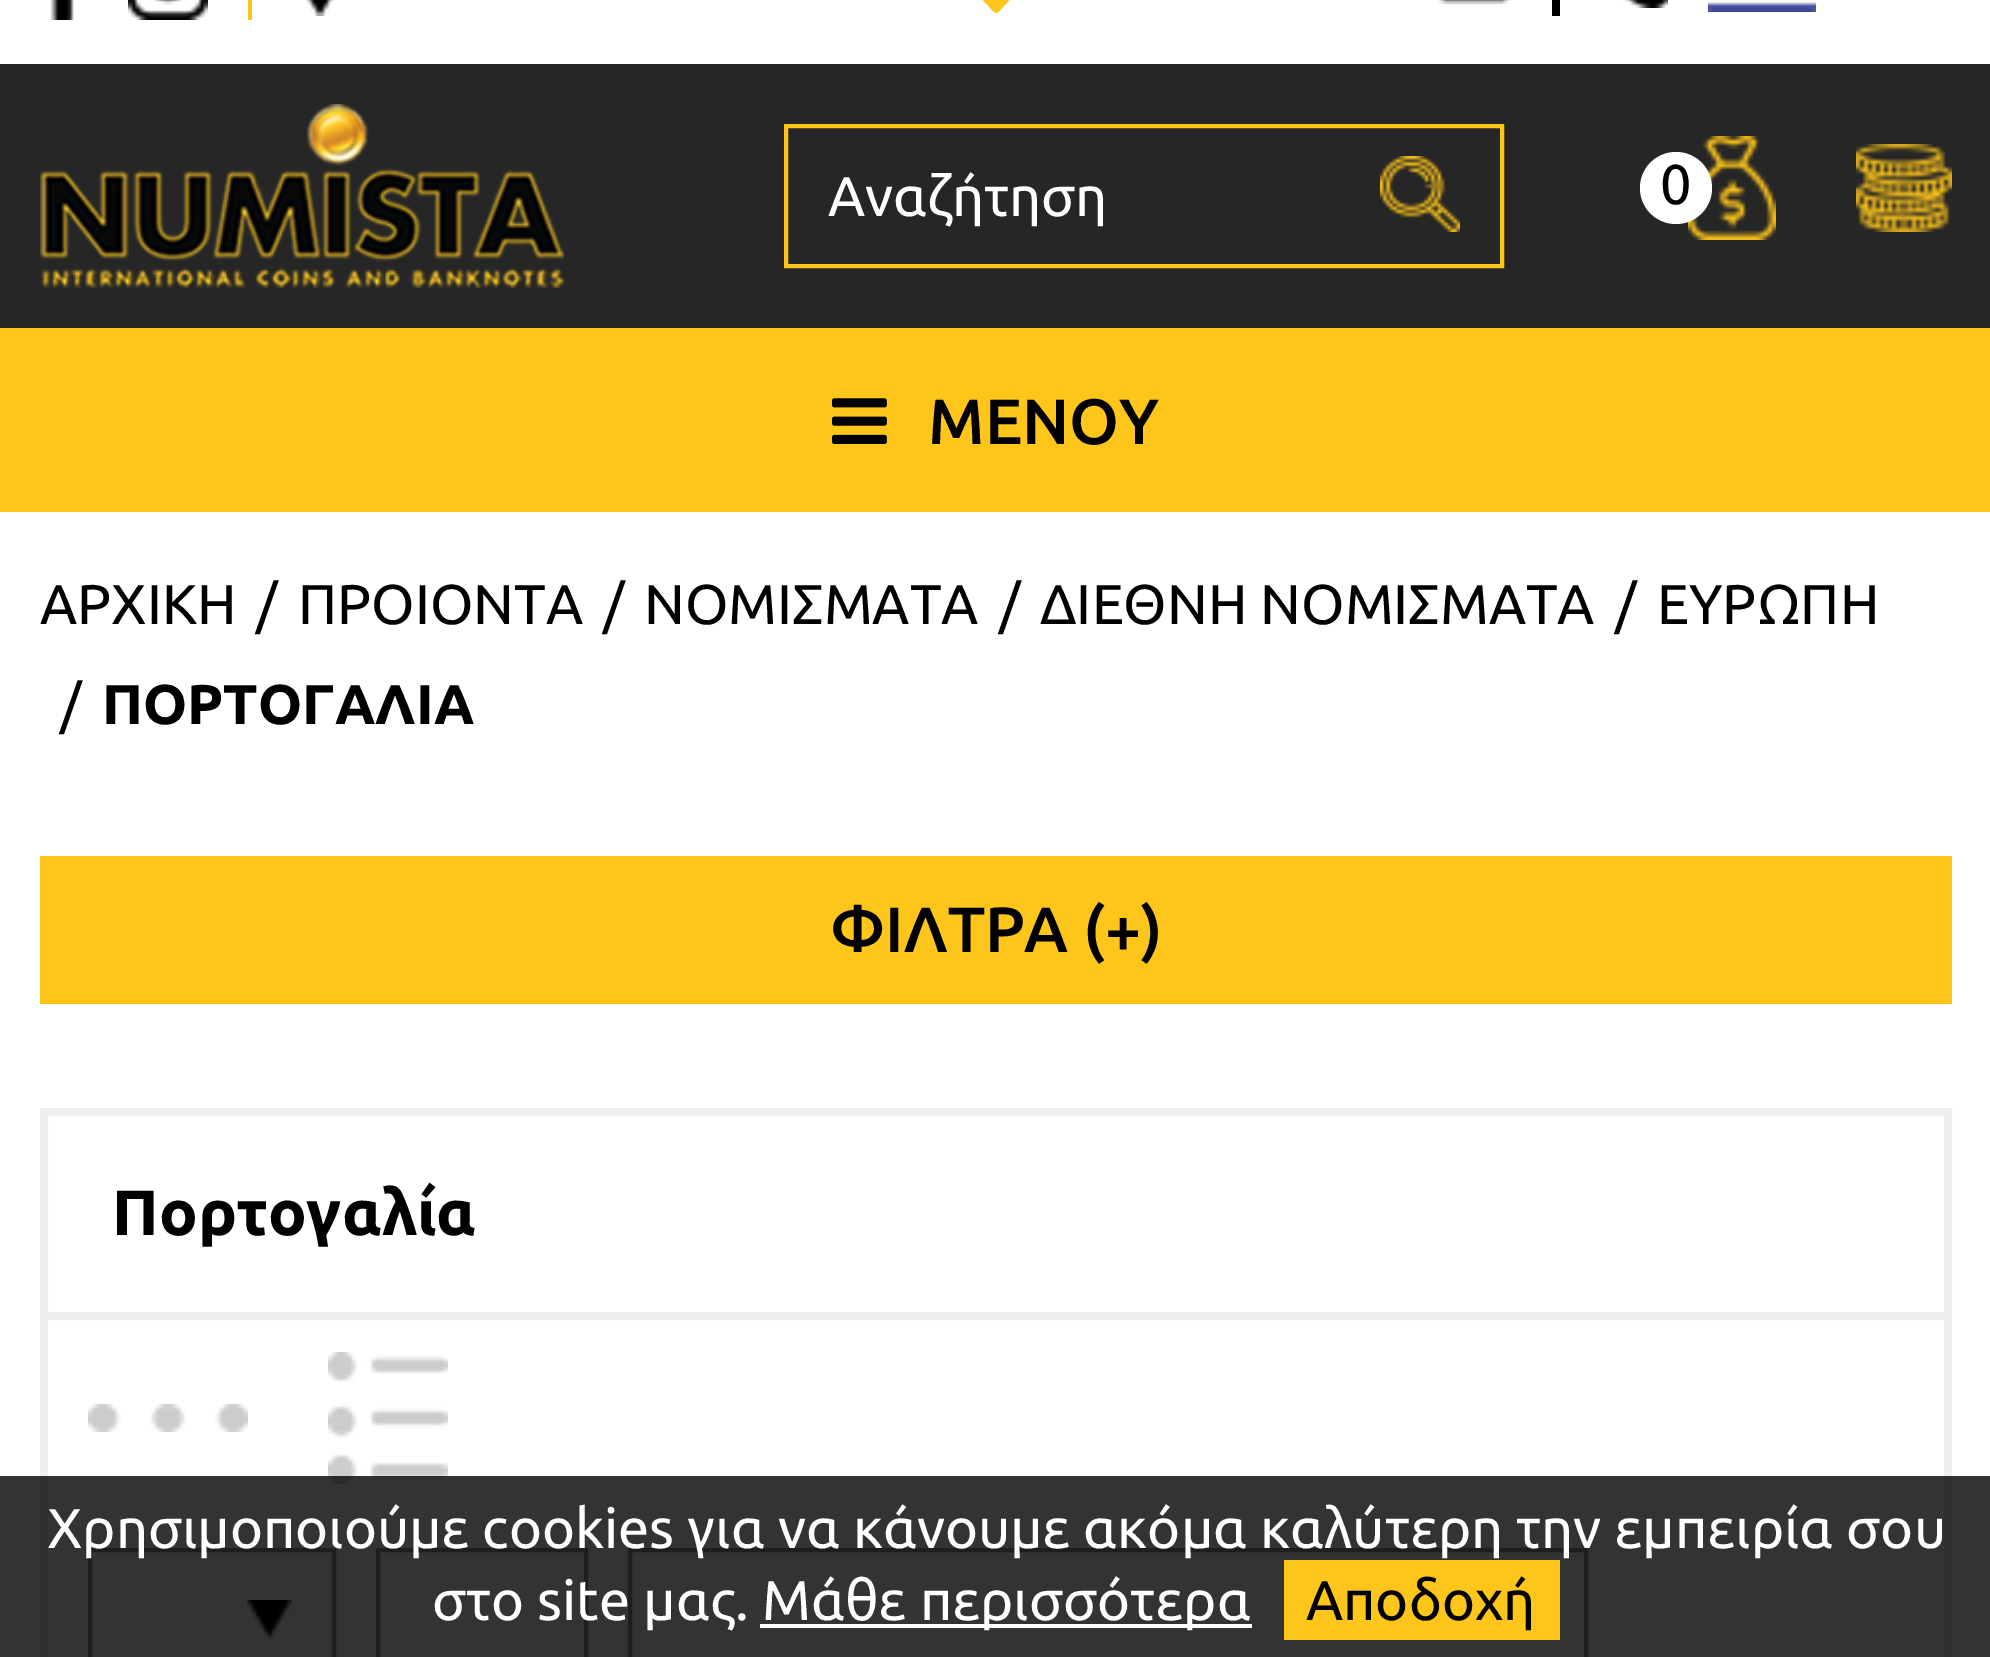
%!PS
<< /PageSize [1990 1657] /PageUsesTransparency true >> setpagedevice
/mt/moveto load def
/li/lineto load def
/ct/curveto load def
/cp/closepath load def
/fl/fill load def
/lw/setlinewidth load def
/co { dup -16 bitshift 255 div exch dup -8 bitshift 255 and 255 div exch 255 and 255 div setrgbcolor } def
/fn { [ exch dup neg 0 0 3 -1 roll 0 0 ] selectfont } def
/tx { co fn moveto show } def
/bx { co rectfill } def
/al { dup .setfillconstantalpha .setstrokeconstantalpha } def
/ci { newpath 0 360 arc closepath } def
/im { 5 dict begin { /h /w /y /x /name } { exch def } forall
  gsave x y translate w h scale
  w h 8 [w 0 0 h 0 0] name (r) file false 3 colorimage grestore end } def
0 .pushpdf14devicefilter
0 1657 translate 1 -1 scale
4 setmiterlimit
0 0 1990 1657 16#FFFFFF bx
248 0 4 20 16#FEC51B bx
(media/1.raw) 50 0 24 20 im
(media/2.raw) 128 0 80 20 im
(media/3.raw) 306 0 28 16 im
1552 0 8 16 16#000000 bx
(media/4.raw) 1438 0 72 4 im
(media/5.raw) 1623 0 45 8 im
(media/6.raw) 1708 0 108 12 im
16#FEC51B co
994 12 mt 974 -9 li 969 -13 967 -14 971 -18 ct 976 -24 978 -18 983 -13 ct 996 0 li 1009 -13 li 1011 -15 1015 -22 1018 -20 ct 1021 -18 li 1025 -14 1023 -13 1018 -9 ct 1002 8 li 1001 9 997 15 994 12 ct cp fl
0 64 1990 264 16#262626 bx
(media/7.raw) 40 104 524 184 im
16#FEC51B co
4 lw
786 126 716 140 rectstroke
(media/8.raw) 1380 156 80 76 im
(media/9.raw) 1688 136 88 104 im
16#FFFFFF co
1676 188 36 ci fl
(media/10.raw) 1856 144 96 88 im
0 328 1990 184 16#FEC51B bx
(media/11.raw) 832 398 55 46 im
40 856 1912 148 16#FEC51B bx
16#EFEFEF co
8 lw
44 1112 1904 204 rectstroke
1944 1320 8 337 16#EFEFEF bx
40 1320 8 337 16#EFEFEF bx
(media/12.raw) 88 1404 160 28 im
(media/13.raw) 328 1352 120 132 im
(media/14.raw) 246 1600 46 40 im
16#959595 co
4 lw
90 1550 244 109 rectstroke
378 1550 208 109 rectstroke
630 1550 956 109 rectstroke
0.8 al
0 1476 1990 181 16#000000 bx
1 al
760 1624 492 4 16#FFFFFF bx
1284 1560 276 80 16#FEC51B bx
(Αναζήτηση) 828 216 /Ubuntu-Regular 56 16#FFFFFF tx
(0) 1660 204 /Ubuntu-Regular 56 16#000000 tx
(ΜΕΝΟΥ) 928 444 /Ubuntu-Medium 64 16#000000 tx
(ΑΡΧΙΚΗ) 40 624 /Ubuntu-Regular 56 16#000000 tx
(/) 256 624 /Ubuntu-Regular 56 16#000000 tx
(ΠΡΟΙΟΝΤΑ) 298 624 /Ubuntu-Regular 56 16#000000 tx
(/) 603 624 /Ubuntu-Regular 56 16#000000 tx
(ΝΟΜΙΣΜΑΤΑ) 644 624 /Ubuntu-Regular 56 16#000000 tx
(/) 999 624 /Ubuntu-Regular 56 16#000000 tx
(ΔΙΕΘΝΗ ΝΟΜΙΣΜΑΤΑ) 1040 624 /Ubuntu-Regular 56 16#000000 tx
(/) 1615 624 /Ubuntu-Regular 56 16#000000 tx
(ΕΥΡΩΠΗ) 1657 624 /Ubuntu-Regular 56 16#000000 tx
(/) 60 724 /Ubuntu-Regular 56 16#000000 tx
(ΠΟΡΤΟΓΑΛΙΑ) 102 724 /Ubuntu-Bold 56 16#000000 tx
(ΦΙΛΤΡΑ \(+\)) 830 952 /Ubuntu-Medium 64 16#000000 tx
(Πορτογαλία) 112 1235 /Ubuntu-Bold 64 16#000000 tx
(Χρησιμοποιούμε cookies για να κάνουμε ακόμα καλύτερη την εμπειρία σου) 47 1548 /Ubuntu-Regular 56 16#FFFFFF tx
(στο site μας.) 432 1620 /Ubuntu-Regular 56 16#FFFFFF tx
(Μάθε περισσότερα) 762 1620 /Ubuntu-Regular 56 16#FFFFFF tx
(Αποδοχή) 1306 1620 /Ubuntu-Regular 56 16#000000 tx
.poppdf14devicefilter showpage
